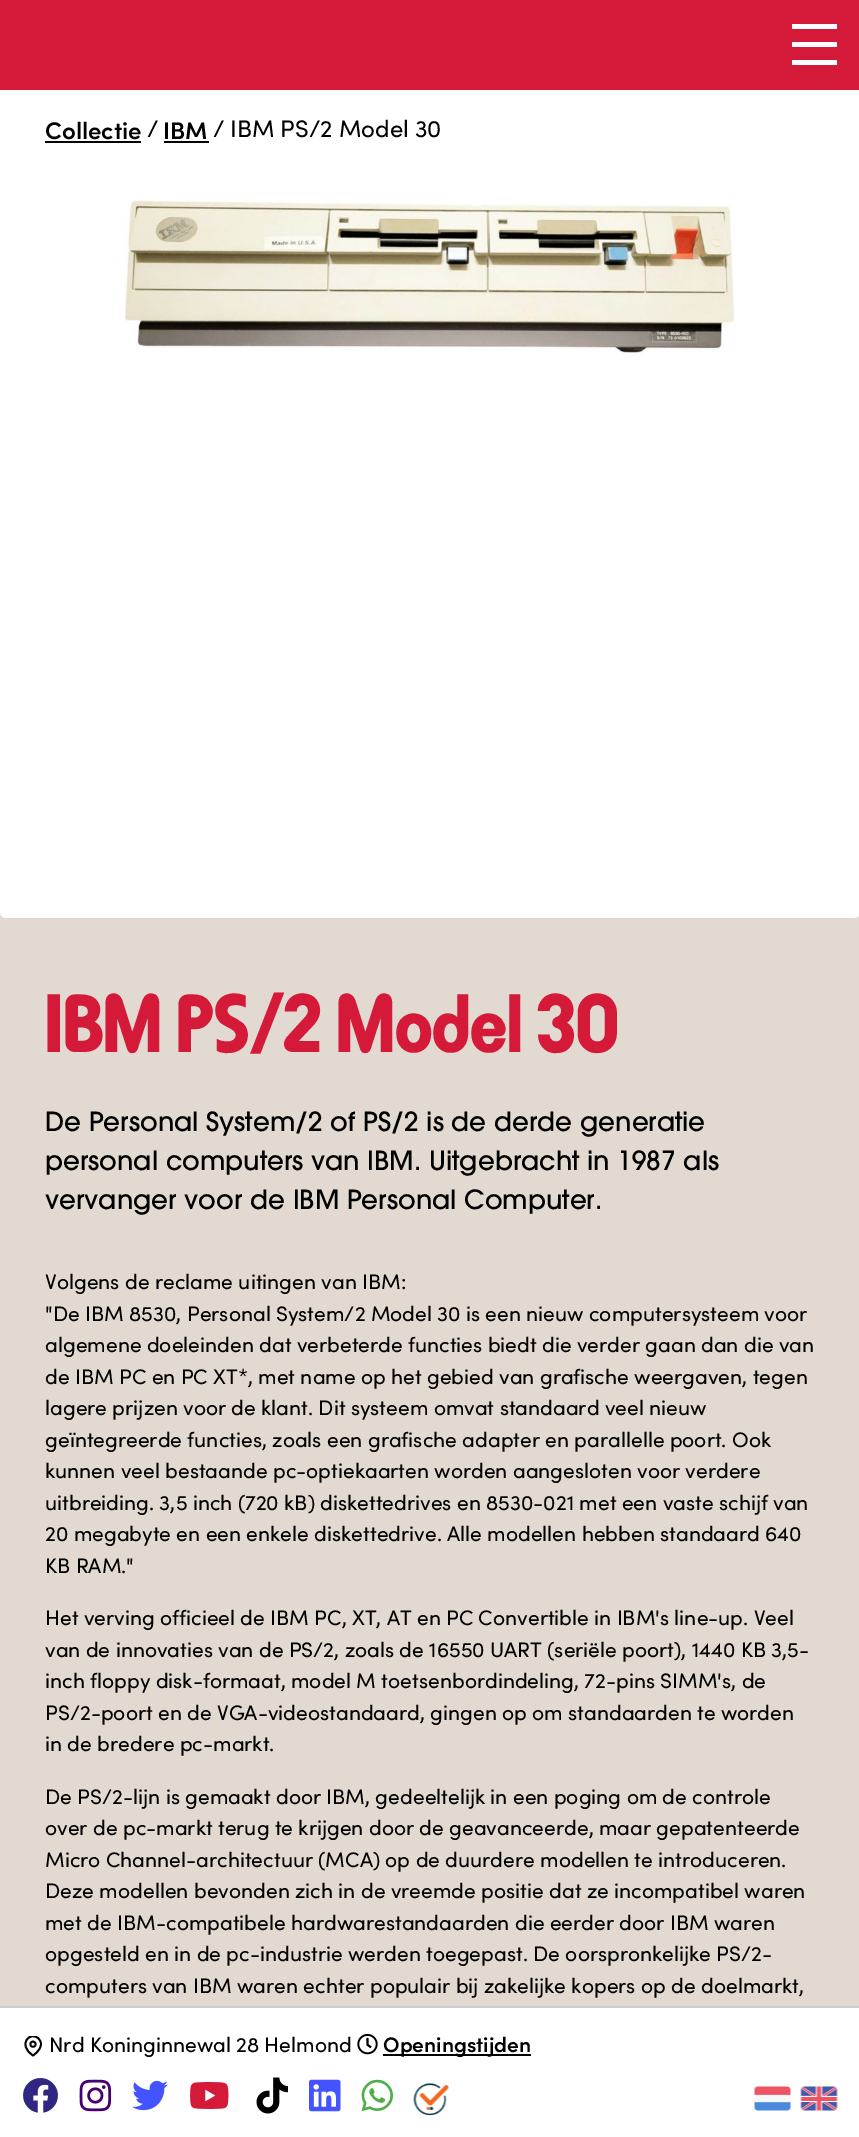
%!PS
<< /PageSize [859 2137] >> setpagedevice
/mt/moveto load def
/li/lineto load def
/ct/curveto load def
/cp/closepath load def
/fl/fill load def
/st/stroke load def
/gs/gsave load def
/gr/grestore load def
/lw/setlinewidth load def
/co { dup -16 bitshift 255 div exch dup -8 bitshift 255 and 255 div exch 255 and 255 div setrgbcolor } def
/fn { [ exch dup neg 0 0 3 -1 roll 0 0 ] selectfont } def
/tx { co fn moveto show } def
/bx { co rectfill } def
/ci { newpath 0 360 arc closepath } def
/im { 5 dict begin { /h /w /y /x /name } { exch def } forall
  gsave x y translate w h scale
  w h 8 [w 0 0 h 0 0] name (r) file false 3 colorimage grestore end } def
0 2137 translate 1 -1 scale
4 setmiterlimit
0 0 859 2137 16#E2DAD1 bx
16#FFFFFF co
0 63 mt 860 63 li 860 912 li 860 915.5 857.5 918 854 918 ct 6 918 li 2.5 918 0 915.5 0 912 ct cp fl
0 0 859 90 16#D51939 bx
792 24 45 5 16#FFFFFF bx
792 42 45 5 16#FFFFFF bx
792 60 45 5 16#FFFFFF bx
45 141 96 2 16#000000 bx
164 141 45 2 16#000000 bx
(media/1.raw) 124 199 611 157 im
0 2008 859 129 16#FFFFFF bx
0 2006 859 2 16#CCCCCC bx
gs
23 2036 21 21 rectclip
16#000000 co
1.8 lw
1 setlinecap
1 setlinejoin
41 2044 mt 41 2050.5 33 2055.5 33 2055.5 ct 16.5 2044.5 30.5 2030.5 38.5 2038.5 ct 40 2040 41 2042 41 2044 ct cp st
gr
16#000000 co
1.8 lw
33 2044.2 2.6 ci st
(media/2.raw) 357 2034 21 21 im
383 2054 148 2 16#000000 bx
(media/3.raw) 23 2078 35 35 im
(media/4.raw) 79 2079 33 33 im
(media/5.raw) 132 2080 36 31 im
(media/6.raw) 190 2082 39 27 im
(media/7.raw) 256 2077 32 37 im
(media/8.raw) 309 2079 32 33 im
(media/9.raw) 361 2079 32 33 im
(media/10.raw) 413 2083 36 33 im
(media/11.raw) 754 2086 37 25 im
(media/12.raw) 800 2086 38 25 im
(Collectie) 45 139 /Sofia-SemiBold 24 16#000000 tx
(/) 147 137 /Sofia-Regular 24 16#000000 tx
(IBM) 163 139 /Sofia-SemiBold 24 16#000000 tx
(/) 213 137 /Sofia-Regular 24 16#000000 tx
(IBM PS/2 Model 30) 230 137 /Sofia-Regular 24 16#000000 tx
(IBM PS/2 Model 30) 45 1052 /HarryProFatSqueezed-Regular 86 16#D51939 tx
(De Personal System/2 of PS/2 is de derde generatie) 45 1131 /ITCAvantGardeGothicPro-Medium 26.25 16#000000 tx
(personal computers van IBM. Uitgebracht in 1987 als) 45 1170 /ITCAvantGardeGothicPro-Medium 26.25 16#000000 tx
(vervanger voor de IBM Personal Computer.) 45 1209 /ITCAvantGardeGothicPro-Medium 26.25 16#000000 tx
(Volgens de reclame uitingen van IBM:) 45 1289 /Sofia-Regular 21 16#000000 tx
("De IBM 8530, Personal System/2 Model 30 is een nieuw computersysteem voor) 45 1321 /Sofia-Regular 21 16#000000 tx
(algemene doeleinden dat verbeterde functies biedt die verder gaan dan die van) 45 1352 /Sofia-Regular 21 16#000000 tx
(de IBM PC en PC XT*, met name op het gebied van grafische weergaven, tegen) 45 1384 /Sofia-Regular 21 16#000000 tx
(lagere prijzen voor de klant. Dit systeem omvat standaard veel nieuw) 45 1415 /Sofia-Regular 21 16#000000 tx
(geïntegreerde functies, zoals een grafische adapter en parallelle poort. Ook) 45 1447 /Sofia-Regular 21 16#000000 tx
(kunnen veel bestaande pc-optiekaarten worden aangesloten voor verdere) 45 1478 /Sofia-Regular 21 16#000000 tx
(uitbreiding. 3,5 inch \(720 kB\) diskettedrives en 8530-021 met een vaste schijf van) 45 1510 /Sofia-Regular 21 16#000000 tx
(20 megabyte en een enkele diskettedrive. Alle modellen hebben standaard 640) 45 1541 /Sofia-Regular 21 16#000000 tx
(KB RAM.") 45 1573 /Sofia-Regular 21 16#000000 tx
(Het verving officieel de IBM PC, XT, AT en PC Convertible in IBM's line-up. Veel) 45 1625 /Sofia-Regular 21 16#000000 tx
(van de innovaties van de PS/2, zoals de 16550 UART \(seriële poort\), 1440 KB 3,5-) 45 1657 /Sofia-Regular 21 16#000000 tx
(inch floppy disk-formaat, model M toetsenbordindeling, 72-pins SIMM's, de) 45 1688 /Sofia-Regular 21 16#000000 tx
(PS/2-poort en de VGA-videostandaard, gingen op om standaarden te worden) 45 1720 /Sofia-Regular 21 16#000000 tx
(in de bredere pc-markt.) 45 1751 /Sofia-Regular 21 16#000000 tx
(De PS/2-lijn is gemaakt door IBM, gedeeltelijk in een poging om de controle) 45 1804 /Sofia-Regular 21 16#000000 tx
(over de pc-markt terug te krijgen door de geavanceerde, maar gepatenteerde) 45 1835 /Sofia-Regular 21 16#000000 tx
(Micro Channel-architectuur \(MCA\) op de duurdere modellen te introduceren.) 45 1867 /Sofia-Regular 21 16#000000 tx
(Deze modellen bevonden zich in de vreemde positie dat ze incompatibel waren) 45 1898 /Sofia-Regular 21 16#000000 tx
(met de IBM-compatibele hardwarestandaarden die eerder door IBM waren) 45 1930 /Sofia-Regular 21 16#000000 tx
(opgesteld en in de pc-industrie werden toegepast. De oorspronkelijke PS/2-) 45 1961 /Sofia-Regular 21 16#000000 tx
(computers van IBM waren echter populair bij zakelijke kopers op de doelmarkt,) 45 1993 /Sofia-Regular 21 16#000000 tx
(Nrd Koninginnewal 28 Helmond) 49 2052 /Sofia-Regular 21 16#000000 tx
(Openingstijden) 383 2052 /Sofia-SemiBold 21 16#000000 tx
showpage
